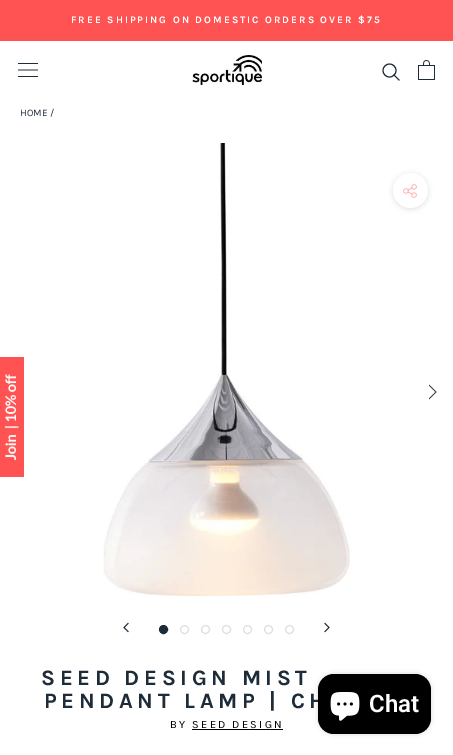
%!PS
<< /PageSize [453 755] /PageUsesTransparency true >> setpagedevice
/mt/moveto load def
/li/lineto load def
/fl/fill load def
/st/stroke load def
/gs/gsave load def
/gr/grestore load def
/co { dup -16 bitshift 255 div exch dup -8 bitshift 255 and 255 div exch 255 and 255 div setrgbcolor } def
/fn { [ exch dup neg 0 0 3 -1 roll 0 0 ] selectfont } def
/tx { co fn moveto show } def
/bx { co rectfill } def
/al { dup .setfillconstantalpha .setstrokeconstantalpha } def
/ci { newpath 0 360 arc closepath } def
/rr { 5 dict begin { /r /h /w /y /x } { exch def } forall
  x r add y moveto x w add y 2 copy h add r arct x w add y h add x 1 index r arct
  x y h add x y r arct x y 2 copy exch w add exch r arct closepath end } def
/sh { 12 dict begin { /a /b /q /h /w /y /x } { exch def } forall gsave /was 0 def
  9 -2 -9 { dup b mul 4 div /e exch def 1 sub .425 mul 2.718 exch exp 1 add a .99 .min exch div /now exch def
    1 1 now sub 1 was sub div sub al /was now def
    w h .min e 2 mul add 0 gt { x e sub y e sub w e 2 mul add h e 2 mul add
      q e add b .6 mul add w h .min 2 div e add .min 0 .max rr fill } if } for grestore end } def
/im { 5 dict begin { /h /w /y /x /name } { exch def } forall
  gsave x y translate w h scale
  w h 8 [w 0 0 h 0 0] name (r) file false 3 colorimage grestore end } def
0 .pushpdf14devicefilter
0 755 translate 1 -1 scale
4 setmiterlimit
0 0 453 755 16#FFFFFF bx
0 357 24 120 16#FF5353 bx
(media/1.raw) 4 374 15 87 im
0 0 453 41 16#FF5353 bx
(media/2.raw) 18 63 20 14 im
(media/3.raw) 191 55 71 30 im
16#1E2C39 co
2 setlinecap
399 80 mt 394 75 li st
0 setlinecap
389.5 70.5 6.5 ci st
(media/4.raw) 418 60 17 20 im
(media/5.raw) 103 143 247 453 im
(media/6.raw) 429 384 8 16 im
16#363636 co
393 174 35 35 17.5 2.5 .15 sh
16#FFFFFF co
410.5 190.5 17.5 ci fl
(media/7.raw) 403 184 14 14 im
16#1E2C39 co
2 setlinecap
128 631.5 mt 124 627.5 li 128 623.5 li st
163.5 629.5 4 ci gs fl gr
0 setlinecap
st
16#DDDFE1 co
184.5 629.5 4 ci st
205.5 629.5 4 ci st
226.5 629.5 4 ci st
247.5 629.5 4 ci st
268.5 629.5 4 ci st
289.5 629.5 4 ci st
16#1E2C39 co
2 setlinecap
325 631.5 mt 329 627.5 li 325 623.5 li st
192 729 91 1 16#000000 bx
318 674 113 60 16 2.5 .15 sh
/Karla-Bold 10 fn
16#FFFFFF co
71 23 mt 2 0 (FREE SHIPPING ON DOMESTIC ORDERS OVER $75) ashow
(HOME /) 20 116 /Karla-Regular 10 16#1E2C39 tx
/Karla-Bold 22 fn
41 685 mt 4.6 0 (SEED DESIGN MIST) ashow
44 708 mt 4.6 0 (PENDANT LAMP | CH) ashow
/Karla-Regular 11 fn
16#000000 co
170 728 mt 2.25 0 (BY SEED DESIGN) ashow
318 674 113 60 16 rr fl
(media/8.raw) 330 692 30 29 im
(Chat) 369 712 /Roboto-SemiBold 24 16#FFFFFF tx
.poppdf14devicefilter showpage
